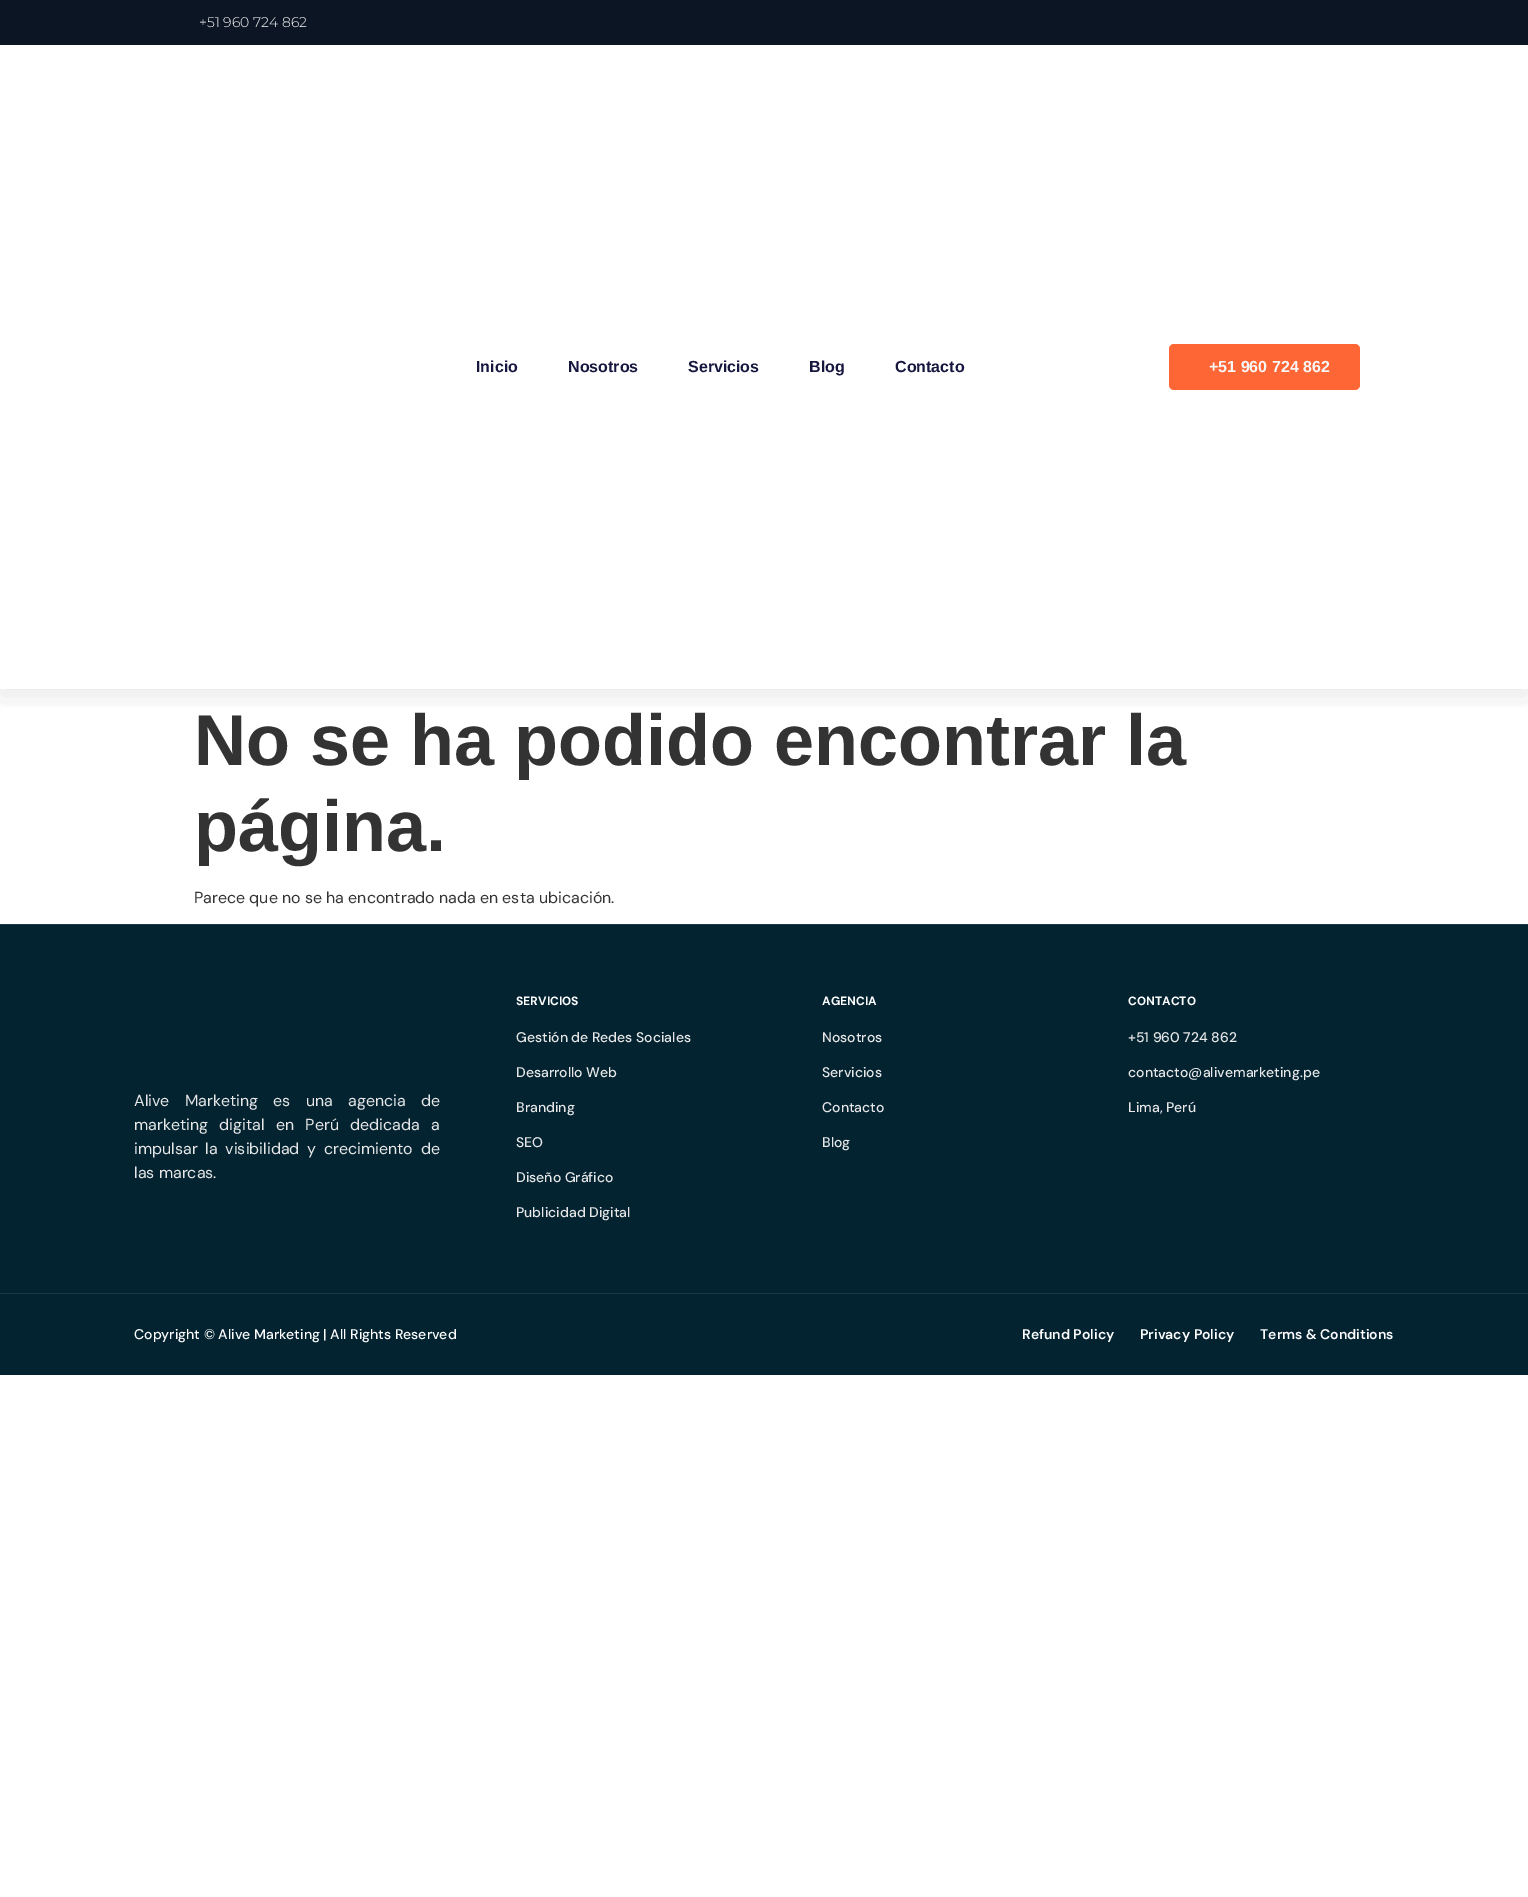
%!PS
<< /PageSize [1528 1897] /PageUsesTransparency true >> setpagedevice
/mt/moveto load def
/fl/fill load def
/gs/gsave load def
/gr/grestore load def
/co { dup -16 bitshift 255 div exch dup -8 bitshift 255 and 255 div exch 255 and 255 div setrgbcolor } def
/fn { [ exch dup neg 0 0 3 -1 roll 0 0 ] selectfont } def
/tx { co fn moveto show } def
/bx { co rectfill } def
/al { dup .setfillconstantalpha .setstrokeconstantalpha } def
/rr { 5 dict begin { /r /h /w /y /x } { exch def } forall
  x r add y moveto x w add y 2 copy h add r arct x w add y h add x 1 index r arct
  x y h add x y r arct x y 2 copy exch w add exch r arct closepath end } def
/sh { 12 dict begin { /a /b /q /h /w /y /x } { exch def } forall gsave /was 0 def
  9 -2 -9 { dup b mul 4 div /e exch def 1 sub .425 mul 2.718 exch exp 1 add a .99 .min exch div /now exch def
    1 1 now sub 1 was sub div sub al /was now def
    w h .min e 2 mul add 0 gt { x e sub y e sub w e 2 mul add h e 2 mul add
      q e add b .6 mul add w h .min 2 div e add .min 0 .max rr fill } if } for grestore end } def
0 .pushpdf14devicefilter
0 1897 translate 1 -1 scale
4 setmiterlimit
0 0 1528 1897 16#FFFFFF bx
gs
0 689 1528 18 rectclip
16#000000 co
0 5 1528 689 0 15 .1 sh
gr
0 0 1528 45 16#0C1523 bx
16#FF6635 co
1169 344 191 46 5 rr fl
0 925 1528 368 16#032331 bx
0 924 1528 1 16#1B3744 bx
0 1294 1528 81 16#032331 bx
0 1293 1528 1 16#1B3744 bx
(+51 960 724 862) 199 27 /Montserrat-Light 14 16#FFFFFF tx
(Inicio) 476 372 /LiberationSans-Bold 16 16#16163F tx
(Nosotros) 568 372 /LiberationSans-Bold 16 16#16163F tx
(Servicios) 688 372 /LiberationSans-Bold 16 16#16163F tx
(Blog) 809 372 /LiberationSans-Bold 16 16#16163F tx
(Contacto) 895 372 /LiberationSans-Bold 16 16#16163F tx
(+51 960 724 862) 1209 372 /LiberationSans-Bold 16 16#F7F7F7 tx
(No se ha podido encontrar la) 194 765 /LiberationSans-Bold 72 16#333333 tx
(página.) 194 851 /LiberationSans-Bold 72 16#333333 tx
(Parece que no se ha encontrado nada en esta ubicación.) 194 903 /DMSans-Regular 16 16#333333 tx
16#E7E7E7 co
134 1106 mt 11 0 32 (Alive Marketing es una agencia de) widthshow
134 1130 mt 7 0 32 (marketing digital en Perú dedicada a) widthshow
134 1154 mt 3.5 0 32 (impulsar la visibilidad y crecimiento de) widthshow
(las marcas.) 134 1178 /DMSans-Regular 16 16#E7E7E7 tx
(SERVICIOS) 516 1005 /DMSans-Bold 12 16#FFFFFF tx
(Gestión de Redes Sociales) 516 1042 /DMSans-Medium 14 16#E7E7E7 tx
(Desarrollo Web) 516 1077 /DMSans-Medium 14 16#E7E7E7 tx
(Branding) 516 1112 /DMSans-Medium 14 16#E7E7E7 tx
(SEO) 516 1147 /DMSans-Medium 14 16#E7E7E7 tx
(Diseño Gráfico) 516 1182 /DMSans-Medium 14 16#E7E7E7 tx
(Publicidad Digital) 516 1217 /DMSans-Medium 14 16#E7E7E7 tx
(AGENCIA) 822 1005 /DMSans-Bold 12 16#FFFFFF tx
(Nosotros) 822 1042 /DMSans-Medium 14 16#E7E7E7 tx
(Servicios) 822 1077 /DMSans-Medium 14 16#E7E7E7 tx
(Contacto) 822 1112 /DMSans-Medium 14 16#E7E7E7 tx
(Blog) 822 1147 /DMSans-Medium 14 16#E7E7E7 tx
(CONTACTO) 1128 1005 /DMSans-Bold 12 16#FFFFFF tx
(+51 960 724 862) 1128 1042 /DMSans-Medium 14 16#E7E7E7 tx
(contacto@alivemarketing.pe) 1128 1077 /DMSans-Medium 14 16#E7E7E7 tx
(Lima, Perú) 1128 1112 /DMSans-Medium 14 16#E7E7E7 tx
(Copyright © Alive Marketing | All Rights Reserved) 134 1339 /DMSans-Medium 14 16#FFFFFF tx
(Refund Policy) 1022 1339 /DMSans-SemiBold 14 16#FFFFFF tx
(Privacy Policy) 1140 1339 /DMSans-SemiBold 14 16#FFFFFF tx
(Terms & Conditions) 1260 1339 /DMSans-SemiBold 14 16#FFFFFF tx
.poppdf14devicefilter showpage
